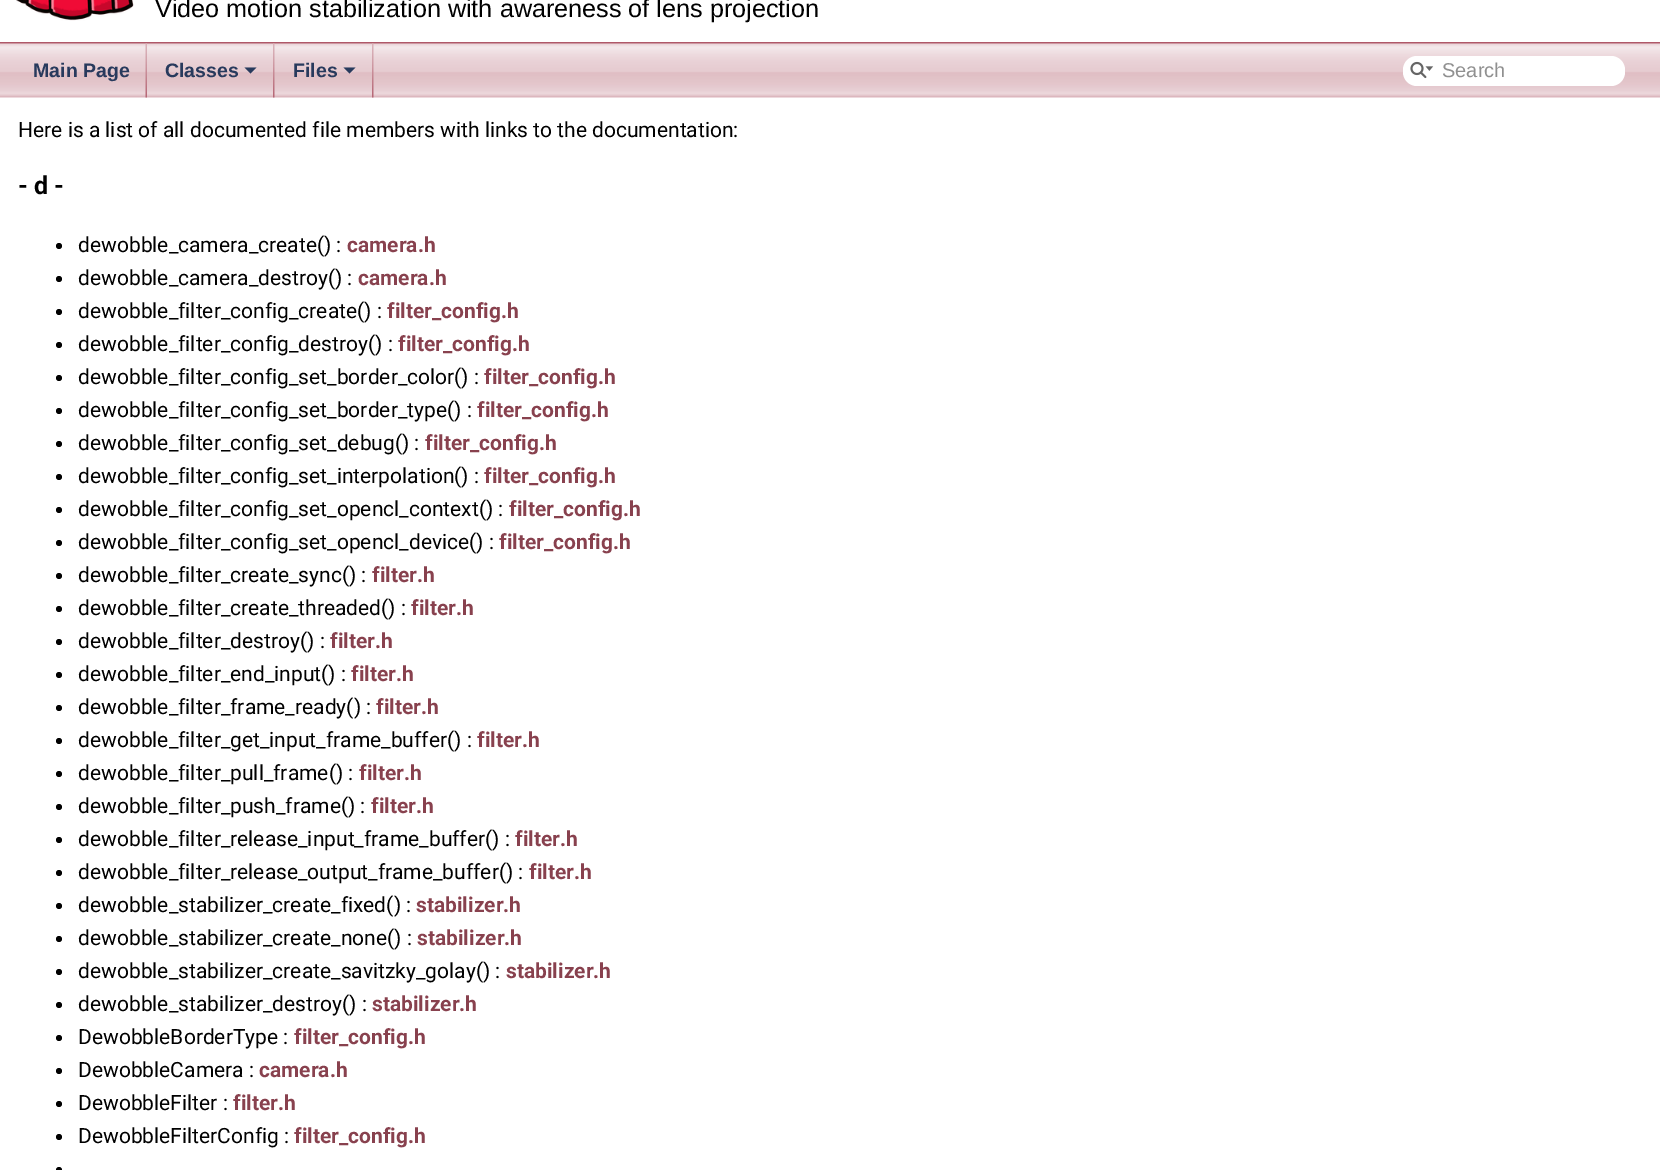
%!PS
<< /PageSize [1660 1170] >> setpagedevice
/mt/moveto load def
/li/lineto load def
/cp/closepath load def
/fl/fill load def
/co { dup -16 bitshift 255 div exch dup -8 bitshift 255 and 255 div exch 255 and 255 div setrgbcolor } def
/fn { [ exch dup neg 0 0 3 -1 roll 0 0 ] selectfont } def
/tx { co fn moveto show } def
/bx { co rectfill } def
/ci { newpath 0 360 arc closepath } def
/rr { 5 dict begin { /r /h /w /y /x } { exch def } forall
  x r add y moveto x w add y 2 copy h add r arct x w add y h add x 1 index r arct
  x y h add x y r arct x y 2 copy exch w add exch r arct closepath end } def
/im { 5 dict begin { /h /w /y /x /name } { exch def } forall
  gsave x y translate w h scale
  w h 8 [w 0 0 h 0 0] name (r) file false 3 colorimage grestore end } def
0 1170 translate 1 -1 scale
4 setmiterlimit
0 0 1660 1170 16#FFFFFF bx
0 42 1660 2 16#AF5868 bx
(media/1.raw) 16 0 118 21 im
(media/2.raw) 0 43 1660 55 im
(media/3.raw) 145 43 2 55 im
(media/4.raw) 273 43 2 55 im
16#283A5D co
244.5 67.5 mt 256.5 67.5 li 250.5 73.5 li cp fl
(media/4.raw) 372 43 2 55 im
343.5 67.5 mt 355.5 67.5 li 349.5 73.5 li cp fl
16#FFFFFF co
1403 56 222 30 14 rr fl
(media/5.raw) 1410 61 24 18 im
16#000000 co
59 246 3 ci fl
59 279 3 ci fl
59 312 3 ci fl
59 345 3 ci fl
59 378 3 ci fl
59 411 3 ci fl
59 444 3 ci fl
59 477 3 ci fl
59 510 3 ci fl
59 543 3 ci fl
59 576 3 ci fl
59 609 3 ci fl
59 642 3 ci fl
59 675 3 ci fl
59 708 3 ci fl
59 741 3 ci fl
59 774 3 ci fl
59 807 3 ci fl
59 840 3 ci fl
59 873 3 ci fl
59 906 3 ci fl
59 939 3 ci fl
59 972 3 ci fl
59 1005 3 ci fl
59 1038 3 ci fl
59 1071 3 ci fl
59 1104 3 ci fl
59 1137 3 ci fl
59 1170 3 ci fl
(Video motion stabilization with awareness of lens projection) 155 17 /LiberationSans-Regular 25.2 16#000000 tx
(Main Page) 33 77 /LiberationSans-Bold 19.5 16#283A5D tx
(Classes) 165 77 /LiberationSans-Bold 19.5 16#283A5D tx
(Files) 293 77 /LiberationSans-Bold 19.5 16#283A5D tx
(Search) 1442 77 /LiberationSans-Regular 20 16#909090 tx
(Here is a list of all documented file members with links to the documentation:) 18 137 /Roboto-Regular 21 16#000000 tx
(- d -) 18 194 /Roboto-Bold 25 16#000000 tx
(dewobble_camera_create\(\) :) 78 252 /Roboto-Regular 21 16#000000 tx
(camera.h) 347 252 /Roboto-Bold 21 16#88414E tx
(dewobble_camera_destroy\(\) :) 78 285 /Roboto-Regular 21 16#000000 tx
(camera.h) 358 285 /Roboto-Bold 21 16#88414E tx
(dewobble_filter_config_create\(\) :) 78 318 /Roboto-Regular 21 16#000000 tx
(filter_config.h) 387 318 /Roboto-Bold 21 16#88414E tx
(dewobble_filter_config_destroy\(\) :) 78 351 /Roboto-Regular 21 16#000000 tx
(filter_config.h) 398 351 /Roboto-Bold 21 16#88414E tx
(dewobble_filter_config_set_border_color\(\) :) 78 384 /Roboto-Regular 21 16#000000 tx
(filter_config.h) 484 384 /Roboto-Bold 21 16#88414E tx
(dewobble_filter_config_set_border_type\(\) :) 78 417 /Roboto-Regular 21 16#000000 tx
(filter_config.h) 477 417 /Roboto-Bold 21 16#88414E tx
(dewobble_filter_config_set_debug\(\) :) 78 450 /Roboto-Regular 21 16#000000 tx
(filter_config.h) 425 450 /Roboto-Bold 21 16#88414E tx
(dewobble_filter_config_set_interpolation\(\) :) 78 483 /Roboto-Regular 21 16#000000 tx
(filter_config.h) 484 483 /Roboto-Bold 21 16#88414E tx
(dewobble_filter_config_set_opencl_context\(\) :) 78 516 /Roboto-Regular 21 16#000000 tx
(filter_config.h) 509 516 /Roboto-Bold 21 16#88414E tx
(dewobble_filter_config_set_opencl_device\(\) :) 78 549 /Roboto-Regular 21 16#000000 tx
(filter_config.h) 499 549 /Roboto-Bold 21 16#88414E tx
(dewobble_filter_create_sync\(\) :) 78 582 /Roboto-Regular 21 16#000000 tx
(filter.h) 372 582 /Roboto-Bold 21 16#88414E tx
(dewobble_filter_create_threaded\(\) :) 78 615 /Roboto-Regular 21 16#000000 tx
(filter.h) 411 615 /Roboto-Bold 21 16#88414E tx
(dewobble_filter_destroy\(\) :) 78 648 /Roboto-Regular 21 16#000000 tx
(filter.h) 330 648 /Roboto-Bold 21 16#88414E tx
(dewobble_filter_end_input\(\) :) 78 681 /Roboto-Regular 21 16#000000 tx
(filter.h) 351 681 /Roboto-Bold 21 16#88414E tx
(dewobble_filter_frame_ready\(\) :) 78 714 /Roboto-Regular 21 16#000000 tx
(filter.h) 376 714 /Roboto-Bold 21 16#88414E tx
(dewobble_filter_get_input_frame_buffer\(\) :) 78 747 /Roboto-Regular 21 16#000000 tx
(filter.h) 477 747 /Roboto-Bold 21 16#88414E tx
(dewobble_filter_pull_frame\(\) :) 78 780 /Roboto-Regular 21 16#000000 tx
(filter.h) 359 780 /Roboto-Bold 21 16#88414E tx
(dewobble_filter_push_frame\(\) :) 78 813 /Roboto-Regular 21 16#000000 tx
(filter.h) 371 813 /Roboto-Bold 21 16#88414E tx
(dewobble_filter_release_input_frame_buffer\(\) :) 78 846 /Roboto-Regular 21 16#000000 tx
(filter.h) 515 846 /Roboto-Bold 21 16#88414E tx
(dewobble_filter_release_output_frame_buffer\(\) :) 78 879 /Roboto-Regular 21 16#000000 tx
(filter.h) 529 879 /Roboto-Bold 21 16#88414E tx
(dewobble_stabilizer_create_fixed\(\) :) 78 912 /Roboto-Regular 21 16#000000 tx
(stabilizer.h) 416 912 /Roboto-Bold 21 16#88414E tx
(dewobble_stabilizer_create_none\(\) :) 78 945 /Roboto-Regular 21 16#000000 tx
(stabilizer.h) 417 945 /Roboto-Bold 21 16#88414E tx
(dewobble_stabilizer_create_savitzky_golay\(\) :) 78 978 /Roboto-Regular 21 16#000000 tx
(stabilizer.h) 506 978 /Roboto-Bold 21 16#88414E tx
(dewobble_stabilizer_destroy\(\) :) 78 1011 /Roboto-Regular 21 16#000000 tx
(stabilizer.h) 372 1011 /Roboto-Bold 21 16#88414E tx
(DewobbleBorderType :) 78 1044 /Roboto-Regular 21 16#000000 tx
(filter_config.h) 294 1044 /Roboto-Bold 21 16#88414E tx
(DewobbleCamera :) 78 1077 /Roboto-Regular 21 16#000000 tx
(camera.h) 259 1077 /Roboto-Bold 21 16#88414E tx
(DewobbleFilter :) 78 1110 /Roboto-Regular 21 16#000000 tx
(filter.h) 233 1110 /Roboto-Bold 21 16#88414E tx
(DewobbleFilterConfig :) 78 1143 /Roboto-Regular 21 16#000000 tx
(filter_config.h) 294 1143 /Roboto-Bold 21 16#88414E tx
showpage
